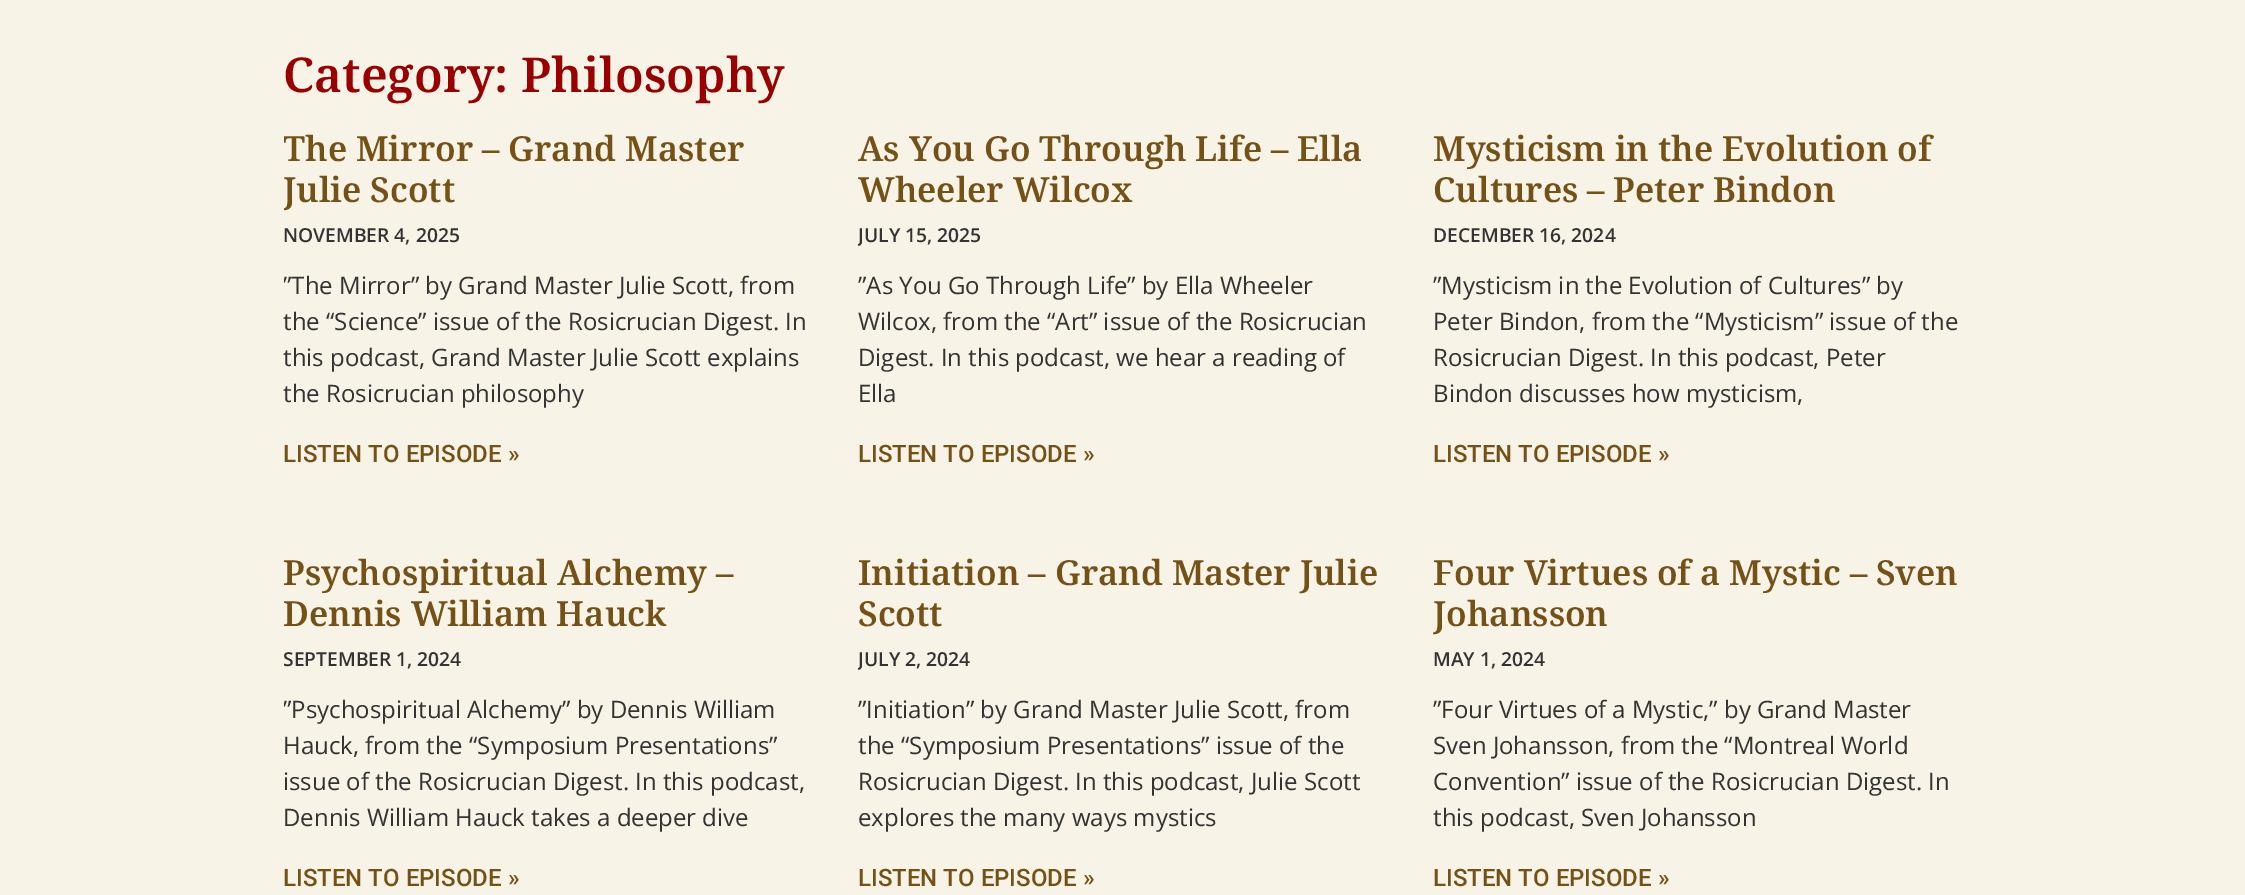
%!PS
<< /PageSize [2245 895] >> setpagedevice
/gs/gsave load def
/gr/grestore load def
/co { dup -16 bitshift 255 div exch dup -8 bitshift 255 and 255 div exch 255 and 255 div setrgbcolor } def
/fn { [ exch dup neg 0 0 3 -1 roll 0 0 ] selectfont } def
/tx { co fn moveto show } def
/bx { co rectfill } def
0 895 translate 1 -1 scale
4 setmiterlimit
0 0 2245 895 16#F8F3E7 bx
(Category: Philosophy) 283 92 /NotoSerif-SemiBold 48 16#990000 tx
gs
284 128 529 372 rectclip
(The Mirror – Grand Master) 283 161 /NotoSerif-SemiBold 34.5 16#755116 tx
(Julie Scott) 283 202 /NotoSerif-SemiBold 34.5 16#755116 tx
gr
(NOVEMBER 4, 2025) 283 242 /OpenSans-SemiBold 19.25 16#333333 tx
gs
284 128 529 372 rectclip
(”The Mirror” by Grand Master Julie Scott, from) 283 294 /OpenSans-Regular 24 16#333333 tx
gr
(the “Science” issue of the Rosicrucian Digest. In) 283 330 /OpenSans-Regular 24 16#333333 tx
(this podcast, Grand Master Julie Scott explains) 283 366 /OpenSans-Regular 24 16#333333 tx
(the Rosicrucian philosophy) 283 402 /OpenSans-Regular 24 16#333333 tx
(LISTEN TO EPISODE ») 283 462 /Roboto-Medium 24 16#755116 tx
(As You Go Through Life – Ella) 858 161 /NotoSerif-SemiBold 34.5 16#755116 tx
(Wheeler Wilcox) 858 202 /NotoSerif-SemiBold 34.5 16#755116 tx
gs
858 128 530 372 rectclip
(JULY 15, 2025) 858 242 /OpenSans-SemiBold 19.25 16#333333 tx
gr
(”As You Go Through Life” by Ella Wheeler) 858 294 /OpenSans-Regular 24 16#333333 tx
(Wilcox, from the “Art” issue of the Rosicrucian) 858 330 /OpenSans-Regular 24 16#333333 tx
(Digest. In this podcast, we hear a reading of) 858 366 /OpenSans-Regular 24 16#333333 tx
(Ella) 858 402 /OpenSans-Regular 24 16#333333 tx
(LISTEN TO EPISODE ») 858 462 /Roboto-Medium 24 16#755116 tx
(Mysticism in the Evolution of) 1433 161 /NotoSerif-SemiBold 34.5 16#755116 tx
(Cultures – Peter Bindon) 1433 202 /NotoSerif-SemiBold 34.5 16#755116 tx
(DECEMBER 16, 2024) 1433 242 /OpenSans-SemiBold 19.25 16#333333 tx
(”Mysticism in the Evolution of Cultures” by) 1433 294 /OpenSans-Regular 24 16#333333 tx
(Peter Bindon, from the “Mysticism” issue of the) 1433 330 /OpenSans-Regular 24 16#333333 tx
(Rosicrucian Digest. In this podcast, Peter) 1433 366 /OpenSans-Regular 24 16#333333 tx
(Bindon discusses how mysticism,) 1433 402 /OpenSans-Regular 24 16#333333 tx
(LISTEN TO EPISODE ») 1433 462 /Roboto-Medium 24 16#755116 tx
gs
284 552 529 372 rectclip
(Psychospiritual Alchemy –) 283 585 /NotoSerif-SemiBold 34.5 16#755116 tx
(Dennis William Hauck) 283 626 /NotoSerif-SemiBold 34.5 16#755116 tx
(SEPTEMBER 1, 2024) 283 666 /OpenSans-SemiBold 19.25 16#333333 tx
(”Psychospiritual Alchemy” by Dennis William) 283 718 /OpenSans-Regular 24 16#333333 tx
gr
(Hauck, from the “Symposium Presentations”) 283 754 /OpenSans-Regular 24 16#333333 tx
(issue of the Rosicrucian Digest. In this podcast,) 283 790 /OpenSans-Regular 24 16#333333 tx
(Dennis William Hauck takes a deeper dive) 283 826 /OpenSans-Regular 24 16#333333 tx
(LISTEN TO EPISODE ») 283 886 /Roboto-Medium 24 16#755116 tx
(Initiation – Grand Master Julie) 858 585 /NotoSerif-SemiBold 34.5 16#755116 tx
(Scott) 858 626 /NotoSerif-SemiBold 34.5 16#755116 tx
gs
858 552 530 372 rectclip
(JULY 2, 2024) 858 666 /OpenSans-SemiBold 19.25 16#333333 tx
gr
(”Initiation” by Grand Master Julie Scott, from) 858 718 /OpenSans-Regular 24 16#333333 tx
(the “Symposium Presentations” issue of the) 858 754 /OpenSans-Regular 24 16#333333 tx
(Rosicrucian Digest. In this podcast, Julie Scott) 858 790 /OpenSans-Regular 24 16#333333 tx
(explores the many ways mystics) 858 826 /OpenSans-Regular 24 16#333333 tx
(LISTEN TO EPISODE ») 858 886 /Roboto-Medium 24 16#755116 tx
(Four Virtues of a Mystic – Sven) 1433 585 /NotoSerif-SemiBold 34.5 16#755116 tx
gs
1433 552 531 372 rectclip
(Johansson) 1433 626 /NotoSerif-SemiBold 34.5 16#755116 tx
gr
(MAY 1, 2024) 1433 666 /OpenSans-SemiBold 19.25 16#333333 tx
(”Four Virtues of a Mystic,” by Grand Master) 1433 718 /OpenSans-Regular 24 16#333333 tx
(Sven Johansson, from the “Montreal World) 1433 754 /OpenSans-Regular 24 16#333333 tx
(Convention” issue of the Rosicrucian Digest. In) 1433 790 /OpenSans-Regular 24 16#333333 tx
(this podcast, Sven Johansson) 1433 826 /OpenSans-Regular 24 16#333333 tx
(LISTEN TO EPISODE ») 1433 886 /Roboto-Medium 24 16#755116 tx
showpage
